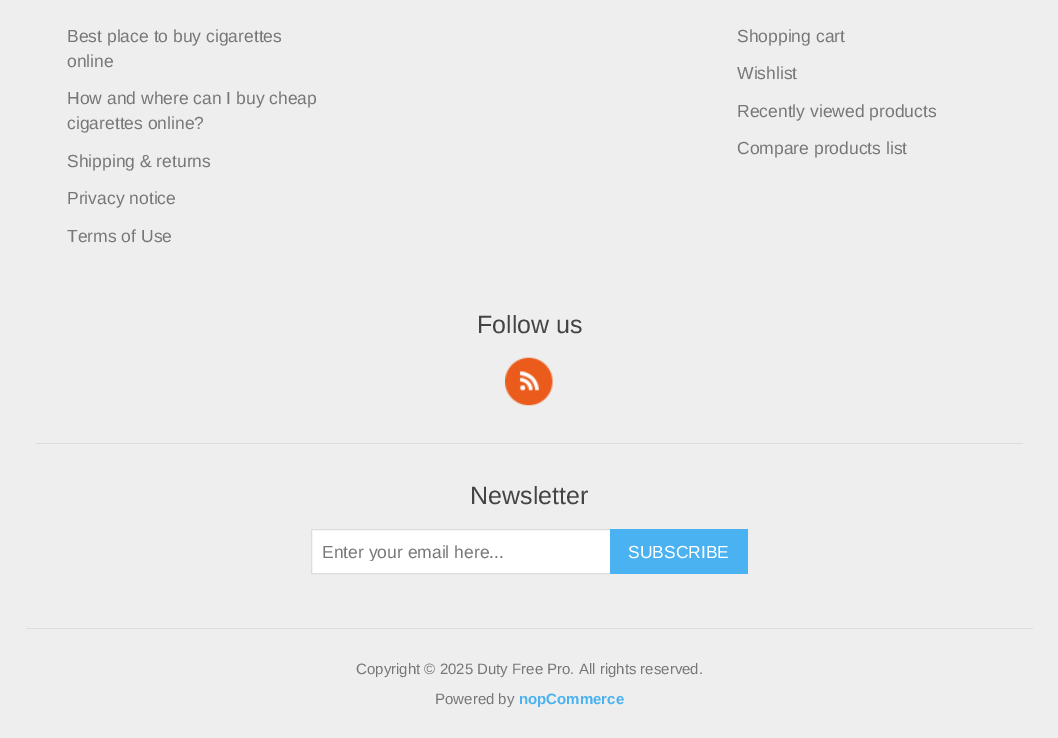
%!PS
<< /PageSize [1058 738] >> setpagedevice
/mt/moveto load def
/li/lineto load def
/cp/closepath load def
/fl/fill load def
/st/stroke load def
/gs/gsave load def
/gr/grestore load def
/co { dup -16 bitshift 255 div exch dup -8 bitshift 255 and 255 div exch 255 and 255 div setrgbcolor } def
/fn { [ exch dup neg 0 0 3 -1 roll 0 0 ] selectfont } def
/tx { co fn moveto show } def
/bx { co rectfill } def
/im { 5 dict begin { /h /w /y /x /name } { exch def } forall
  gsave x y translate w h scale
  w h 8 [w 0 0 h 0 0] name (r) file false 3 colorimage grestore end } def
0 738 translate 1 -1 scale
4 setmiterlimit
0 0 1058 738 16#EEEEEE bx
26 628 1007 1 16#DDDDDD bx
36 443 987 1 16#DDDDDD bx
(media/1.raw) 505 357 48 49 im
16#FFFFFF co
311.5 529.5 mt 610.5 529.5 li 610.5 573.5 li 311.5 573.5 li cp gs fl gr
16#DDDDDD co
st
610 529 138 45 16#4AB2F1 bx
(Best place to buy cigarettes) 67 42 /LiberationSans-Regular 17.5 16#777777 tx
(online) 67 67 /LiberationSans-Regular 17.5 16#777777 tx
(How and where can I buy cheap) 67 104 /LiberationSans-Regular 17.5 16#777777 tx
(cigarettes online?) 67 129 /LiberationSans-Regular 17.5 16#777777 tx
(Shipping & returns) 67 167 /LiberationSans-Regular 17.5 16#777777 tx
(Privacy notice) 67 204 /LiberationSans-Regular 17.5 16#777777 tx
(Terms of Use) 67 242 /LiberationSans-Regular 17.5 16#777777 tx
(Shopping cart) 737 42 /LiberationSans-Regular 17.5 16#777777 tx
(Wishlist) 737 79 /LiberationSans-Regular 17.5 16#777777 tx
(Recently viewed products) 737 117 /LiberationSans-Regular 17.5 16#777777 tx
(Compare products list) 737 154 /LiberationSans-Regular 17.5 16#777777 tx
(Follow us) 477 333 /LiberationSans-Regular 25 16#444444 tx
(Newsletter) 470 504 /LiberationSans-Regular 25 16#444444 tx
gs
323 541 277 20 rectclip
(Enter your email here...) 322 558 /LiberationSans-Regular 17.5 16#777777 tx
gr
(SUBSCRIBE) 628 558 /LiberationSans-Regular 17.5 16#FFFFFF tx
(Copyright © 2025 Duty Free Pro. All rights reserved.) 356 674 /LiberationSans-Regular 15 16#777777 tx
(Powered by) 435 704 /LiberationSans-Regular 15 16#777777 tx
(nopCommerce) 519 704 /LiberationSans-Bold 15 16#4AB2F1 tx
showpage
